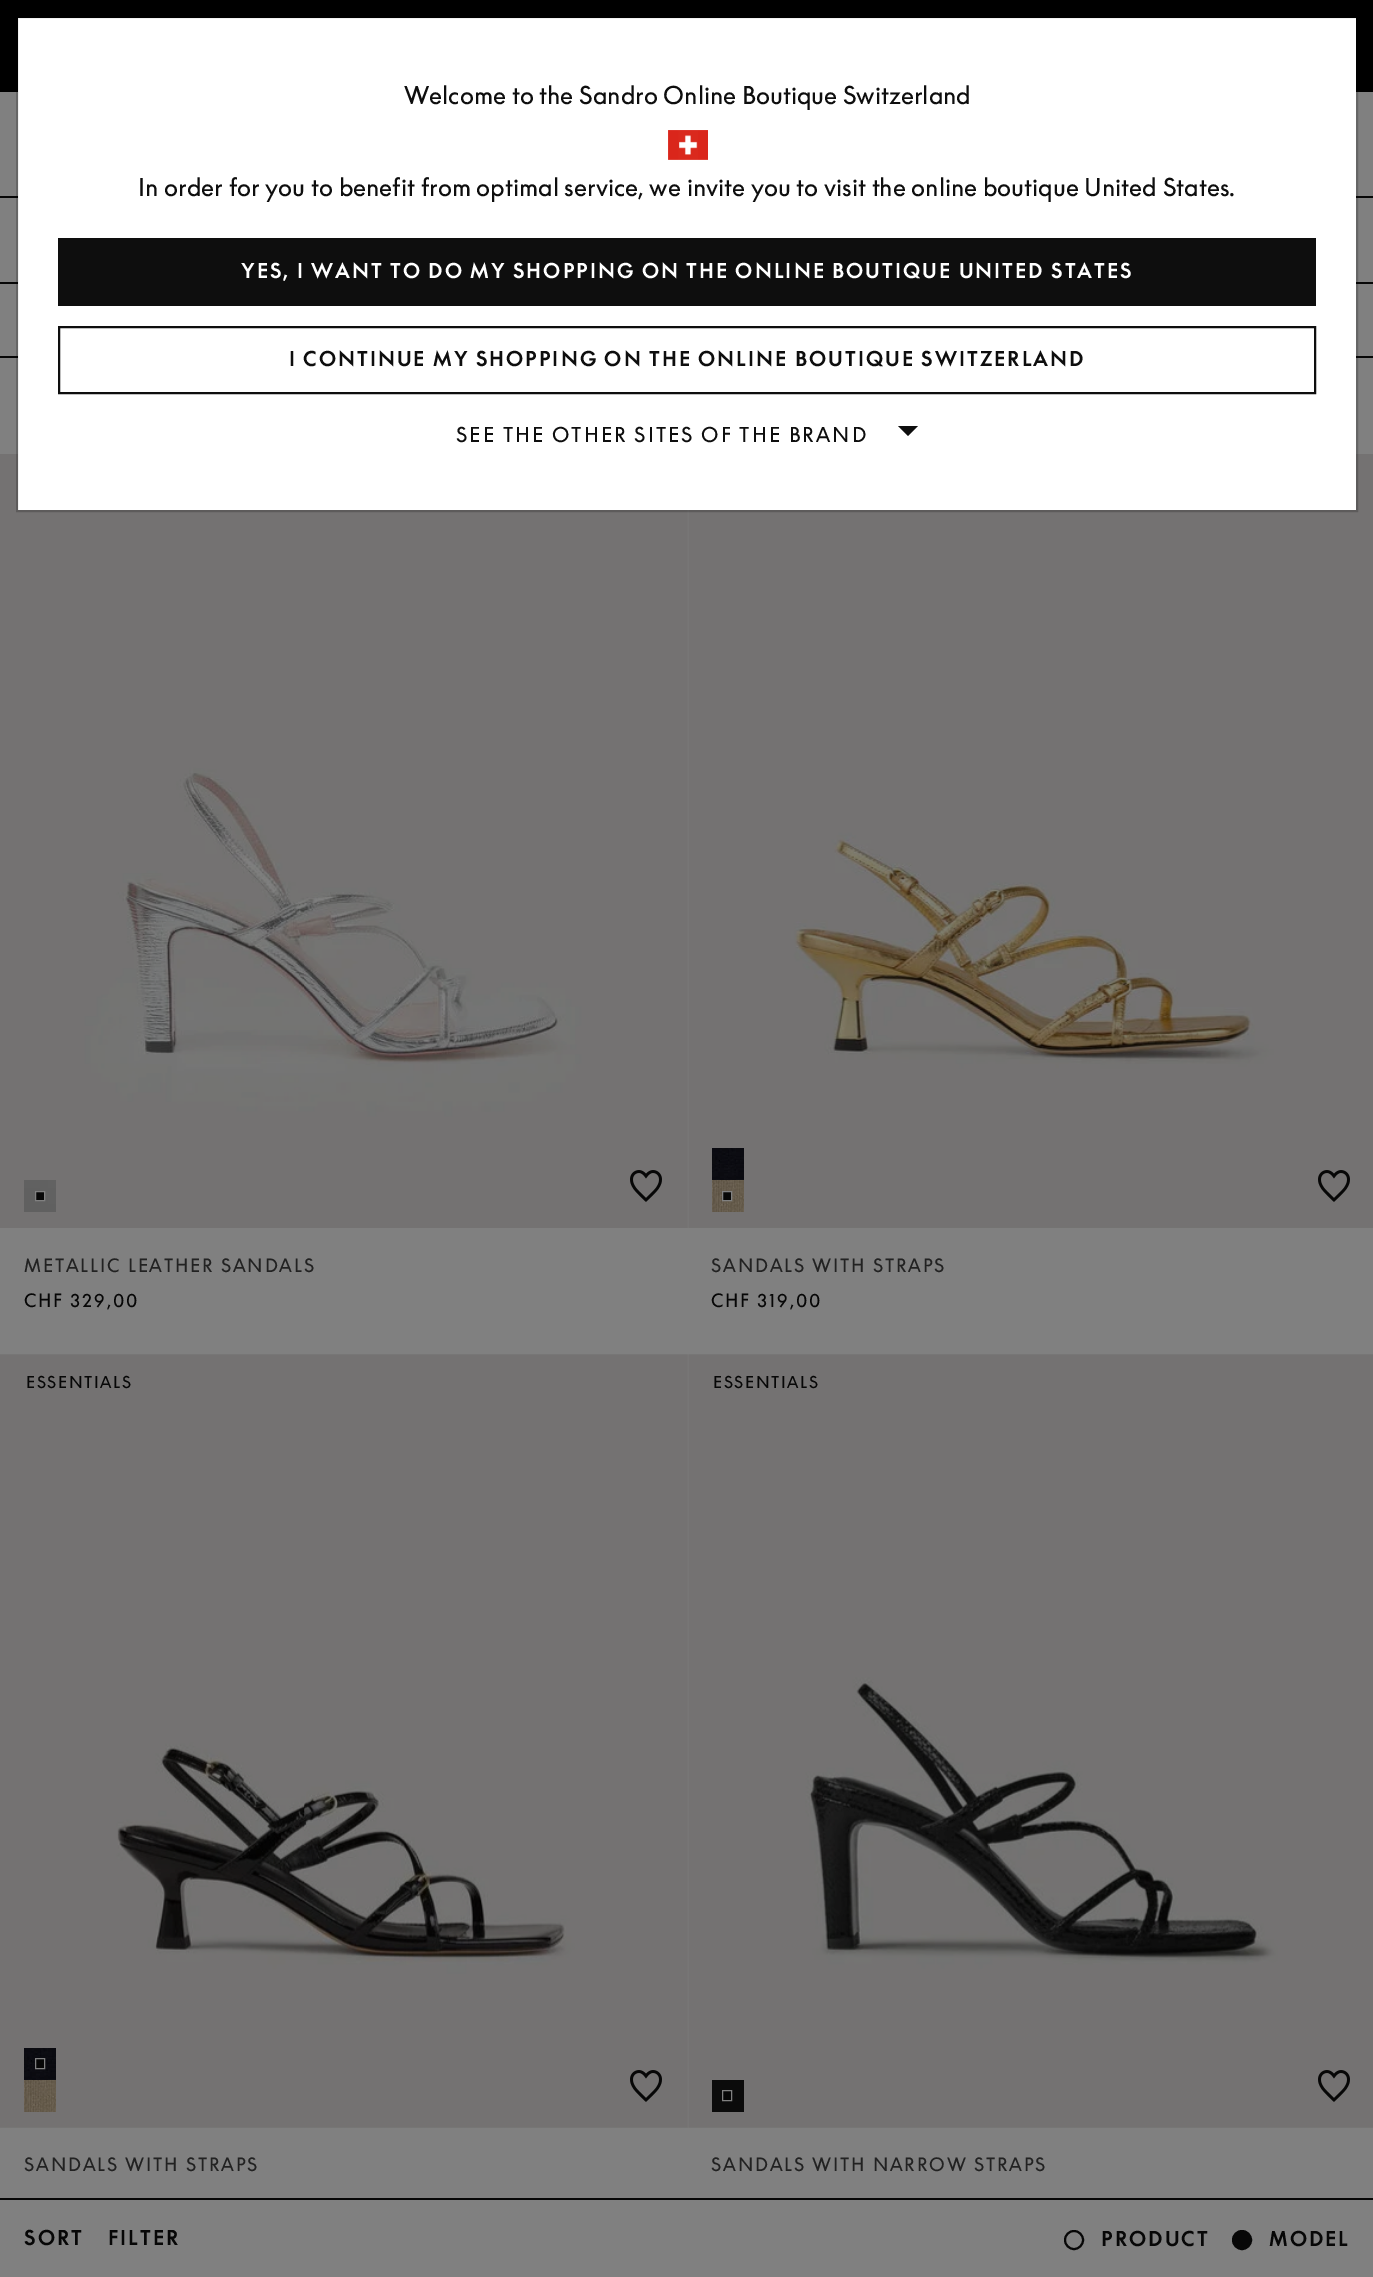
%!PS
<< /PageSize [1373 2277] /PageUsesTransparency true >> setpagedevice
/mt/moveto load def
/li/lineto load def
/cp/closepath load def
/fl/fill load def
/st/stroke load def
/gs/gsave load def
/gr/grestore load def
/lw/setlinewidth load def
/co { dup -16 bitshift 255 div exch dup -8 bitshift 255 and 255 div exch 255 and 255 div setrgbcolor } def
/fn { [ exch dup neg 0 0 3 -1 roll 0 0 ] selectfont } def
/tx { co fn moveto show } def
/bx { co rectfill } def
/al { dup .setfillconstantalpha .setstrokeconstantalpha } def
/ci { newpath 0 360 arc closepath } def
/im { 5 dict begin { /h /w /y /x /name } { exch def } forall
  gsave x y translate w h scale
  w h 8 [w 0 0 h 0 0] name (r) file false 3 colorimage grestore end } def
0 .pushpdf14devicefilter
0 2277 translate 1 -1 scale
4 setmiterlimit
0 0 1373 2277 16#808080 bx
0 0 1373 92 16#000000 bx
0 196 1373 2 16#070707 bx
0 282 1373 2 16#070707 bx
0 356 1373 2 16#070707 bx
(media/2.raw) 0 454 688 774 im
(media/5.raw) 688 454 685 774 im
18 18 1338 492 16#FFFFFF bx
0.2 al
16#000000 co
2 lw
17 17 1340 494 rectstroke
1 al
(media/1.raw) 668 130 40 30 im
58 238 1258 68 16#0E0E0E bx
59 327 1256 66 rectstroke
898 426 mt 918 426 li 908 436 li cp fl
(media/3.raw) 24 1180 32 32 im
16#070707 co
35.5 1191.5 mt 44.5 1191.5 li 44.5 1200.5 li 35.5 1200.5 li cp gs fl gr
16#808080 co
1 lw
st
(media/4.raw) 630 1170 32 32 im
(media/6.raw) 712 1148 32 32 im
(media/7.raw) 712 1180 32 32 im
16#070707 co
722.5 1191.5 mt 731.5 1191.5 li 731.5 1200.5 li 722.5 1200.5 li cp gs fl gr
16#808080 co
st
(media/4.raw) 1318 1170 32 32 im
(media/8.raw) 0 1354 688 774 im
(media/6.raw) 24 2048 32 32 im
16#070707 co
35.5 2058.5 mt 44.5 2058.5 li 44.5 2068.5 li 35.5 2068.5 li cp gs fl gr
16#808080 co
st
(media/7.raw) 24 2080 32 32 im
(media/4.raw) 630 2070 32 32 im
(media/9.raw) 688 1354 685 774 im
712 2080 32 32 16#0B0B0B bx
16#070707 co
722.5 2090.5 mt 731.5 2090.5 li 731.5 2100.5 li 722.5 2100.5 li cp gs fl gr
16#808080 co
st
(media/4.raw) 1318 2070 32 32 im
0 2198 1373 2 16#070707 bx
2 lw
1074 2240 9 ci st
1242 2240 9 ci gs fl gr
st
(Welcome to the Sandro Online Boutique Switzerland) 404 104 /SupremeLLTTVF-Regular 24 16#0E0E0E tx
(In order for you to benefit from optimal service, we invite you to visit the online boutique United States.) 138 196 /SupremeLLTTVF-Regular 24 16#0E0E0E tx
/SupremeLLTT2-Bold 20 fn
16#FFFFFF co
241 278 mt 2 0 (YES, I WANT TO DO MY SHOPPING ON THE ONLINE BOUTIQUE UNITED STATES) ashow
16#0E0E0E co
289 366 mt 2 0 (I CONTINUE MY SHOPPING ON THE ONLINE BOUTIQUE SWITZERLAND) ashow
/SupremeLLTTVF-Regular 20 fn
456 442 mt 2 0 (SEE THE OTHER SITES OF THE BRAND) ashow
/SupremeLLTTVF-Regular 18 fn
16#222222 co
24 1272 mt 1.8 0 (METALLIC LEATHER SANDALS) ashow
16#070707 co
24 1307 mt 1.8 0 (CHF 329,00) ashow
16#222222 co
711 1272 mt 1.8 0 (SANDALS WITH STRAPS) ashow
16#070707 co
711 1307 mt 1.8 0 (CHF 319,00) ashow
/SupremeLLTTVF-Regular 16 fn
26 1388 mt 1.6 0 (ESSENTIALS) ashow
/SupremeLLTTVF-Regular 18 fn
16#222222 co
24 2171 mt 1.8 0 (SANDALS WITH STRAPS) ashow
/SupremeLLTTVF-Regular 16 fn
16#070707 co
713 1388 mt 1.6 0 (ESSENTIALS) ashow
/SupremeLLTTVF-Regular 18 fn
16#222222 co
711 2171 mt 1.8 0 (SANDALS WITH NARROW STRAPS) ashow
/SupremeLLTT2-Bold 20 fn
16#070707 co
24 2245 mt 2 0 (SORT) ashow
108 2245 mt 2 0 (FILTER) ashow
/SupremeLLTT-Bold 20 fn
1101 2246 mt 2 0 (PRODUCT) ashow
1269 2246 mt 2 0 (MODEL) ashow
.poppdf14devicefilter showpage
